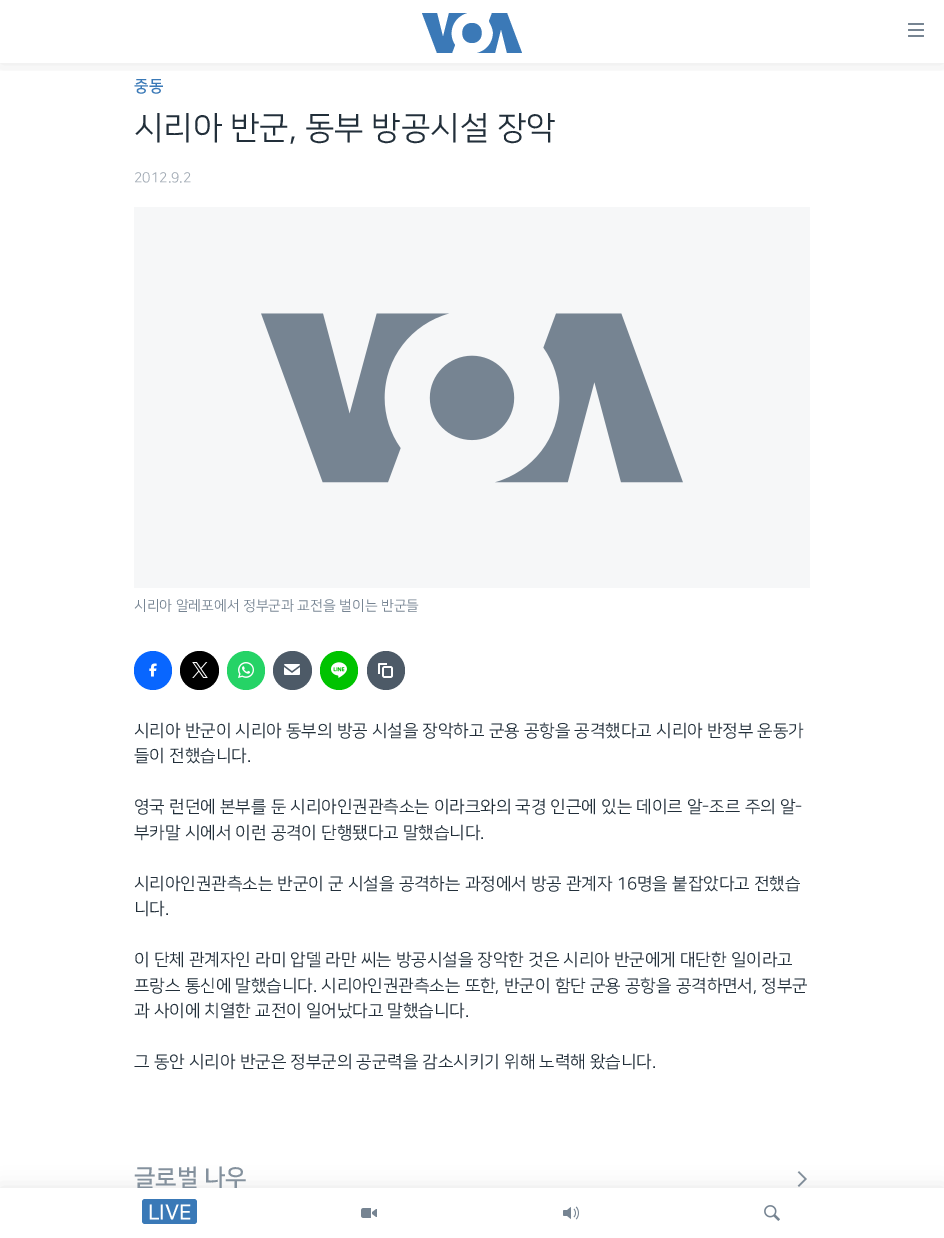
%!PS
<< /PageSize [944 1238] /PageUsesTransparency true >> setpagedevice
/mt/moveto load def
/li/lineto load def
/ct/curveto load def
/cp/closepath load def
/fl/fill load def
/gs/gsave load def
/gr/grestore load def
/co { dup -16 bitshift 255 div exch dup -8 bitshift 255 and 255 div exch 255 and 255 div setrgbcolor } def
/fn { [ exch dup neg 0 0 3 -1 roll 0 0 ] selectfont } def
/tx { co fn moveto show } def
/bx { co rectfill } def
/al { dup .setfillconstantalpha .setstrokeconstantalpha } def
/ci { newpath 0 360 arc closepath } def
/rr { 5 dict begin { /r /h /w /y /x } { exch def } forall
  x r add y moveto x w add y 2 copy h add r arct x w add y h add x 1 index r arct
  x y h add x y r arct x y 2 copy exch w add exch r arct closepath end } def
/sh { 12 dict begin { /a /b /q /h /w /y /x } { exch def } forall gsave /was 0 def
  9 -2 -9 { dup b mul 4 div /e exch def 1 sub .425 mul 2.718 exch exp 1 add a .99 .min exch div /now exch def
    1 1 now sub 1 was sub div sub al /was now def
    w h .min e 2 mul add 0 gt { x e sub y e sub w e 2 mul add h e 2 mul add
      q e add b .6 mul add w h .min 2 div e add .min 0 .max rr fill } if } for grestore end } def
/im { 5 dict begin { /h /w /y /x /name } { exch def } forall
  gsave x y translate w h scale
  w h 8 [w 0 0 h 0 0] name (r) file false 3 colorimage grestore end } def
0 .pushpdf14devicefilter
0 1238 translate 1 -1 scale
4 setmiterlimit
0 0 944 1238 16#FFFFFF bx
134 207 676 381 16#F6F7F8 bx
(media/1.raw) 261 313 422 170 im
16#0866FF co
134 651 38 39 19 rr fl
(media/2.raw) 149 663 8 14 im
16#000000 co
199.5 670.5 19.5 ci fl
(media/3.raw) 192 662 16 16 im
16#25D366 co
227 651 38 39 19 rr fl
(media/4.raw) 238 662 16 16 im
16#4D5A67 co
292.5 670.5 19.5 ci fl
(media/5.raw) 284 664 16 11 im
16#00C300 co
320 651 38 39 19 rr fl
(media/6.raw) 331 662 16 16 im
16#4D5A67 co
367 651 38 39 19 rr fl
(media/7.raw) 378 663 15 15 im
(media/8.raw) 797 1171 10 16 im
gs
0 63 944 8 rectclip
16#000000 co
0 0 944 63 0 10 .1 sh
gr
16#3B79B7 co
455 45 mt 452 53 li 437 53 li 422 13 li 437 13 li 443 37 li 449 13 li 467 13 li 453 17 447 33 455 45 ct cp 472 23 mt 459 23 459 43 472 43 ct 485 43 485 23 472 23 ct cp 493 33 mt 493 43 486 51 477 53 ct 495 53 li 501 29 li 507 53 li 522 53 li 507 13 li 492 13 li 489 21 li 491 25 493 29 493 33 ct cp fl
(media/9.raw) 908 23 16 14 im
16#000000 co
0 1188 944 50 0 10 .1 sh
(중동) 134 91 /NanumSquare-Bold 16 16#3A79B7 tx
(시리아 반군, 동부 방공시설 장악) 134 138 /NanumSquare-Regular 32.25 16#222F3A tx
(2012.9.2) 134 182 /NanumSquare-Regular 14 16#A1AAB4 tx
(시리아 알레포에서 정부군과 교전을 벌이는 반군들) 134 610 /NanumSquare-Regular 14 16#768492 tx
(시리아 반군이 시리아 동부의 방공 시설을 장악하고 군용 공항을 공격했다고 시리아 반정부 운동가) 134 736 /NanumSquare-Regular 17 16#222F3A tx
(들이 전했습니다.) 134 761 /NanumSquare-Regular 17 16#222F3A tx
(영국 런던에 본부를 둔 시리아인권관측소는 이라크와의 국경 인근에 있는 데이르 알-조르 주의 알-) 134 812 /NanumSquare-Regular 17 16#222F3A tx
(부카말 시에서 이런 공격이 단행됐다고 말했습니다.) 134 838 /NanumSquare-Regular 17 16#222F3A tx
(시리아인권관측소는 반군이 군 시설을 공격하는 과정에서 방공 관계자 16명을 붙잡았다고 전했습) 134 889 /NanumSquare-Regular 17 16#222F3A tx
(니다.) 134 914 /NanumSquare-Regular 17 16#222F3A tx
(이 단체 관계자인 라미 압델 라만 씨는 방공시설을 장악한 것은 시리아 반군에게 대단한 일이라고) 134 965 /NanumSquare-Regular 17 16#222F3A tx
(프랑스 통신에 말했습니다. 시리아인권관측소는 또한, 반군이 함단 군용 공항을 공격하면서, 정부군) 134 991 /NanumSquare-Regular 17 16#222F3A tx
(과 사이에 치열한 교전이 일어났다고 말했습니다.) 134 1016 /NanumSquare-Regular 17 16#222F3A tx
(그 동안 시리아 반군은 정부군의 공군력을 감소시키기 위해 노력해 왔습니다.) 134 1067 /NanumSquare-Regular 17 16#222F3A tx
(글로벌 나우) 134 1185 /NanumSquare-Bold 23.5 16#84919D tx
0 1188 944 50 16#FFFFFF bx
16#3A79B7 co
142 1199 55 25 3 rr fl
(LIVE) 148 1219 /NanumSquare-Bold 21 16#FFFFFF tx
(media/10.raw) 361 1208 16 10 im
(media/11.raw) 563 1206 16 14 im
(media/12.raw) 764 1205 16 16 im
.poppdf14devicefilter showpage
